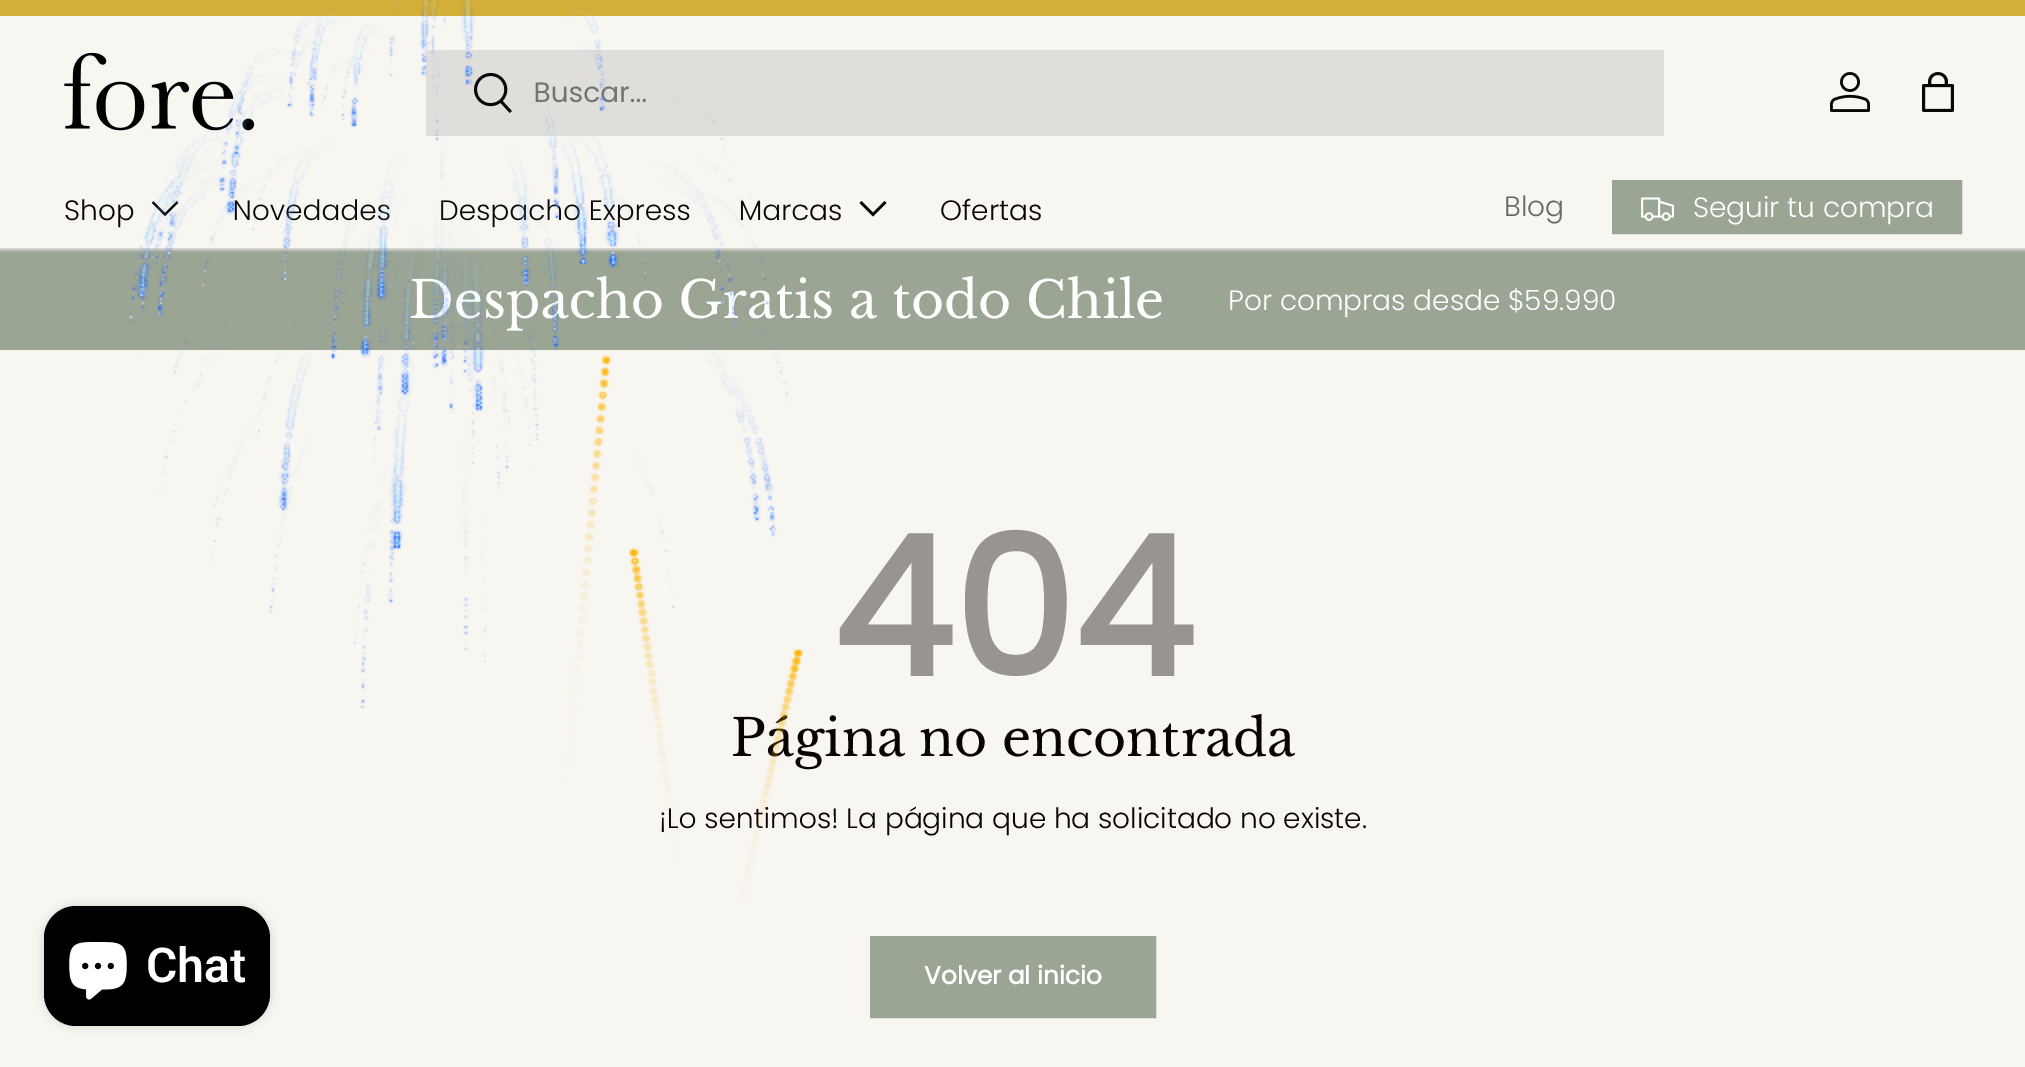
%!PS
<< /PageSize [2025 1067] /PageUsesTransparency true >> setpagedevice
/mt/moveto load def
/li/lineto load def
/cp/closepath load def
/fl/fill load def
/st/stroke load def
/gs/gsave load def
/gr/grestore load def
/lw/setlinewidth load def
/co { dup -16 bitshift 255 div exch dup -8 bitshift 255 and 255 div exch 255 and 255 div setrgbcolor } def
/fn { [ exch dup neg 0 0 3 -1 roll 0 0 ] selectfont } def
/tx { co fn moveto show } def
/bx { co rectfill } def
/al { dup .setfillconstantalpha .setstrokeconstantalpha } def
/rr { 5 dict begin { /r /h /w /y /x } { exch def } forall
  x r add y moveto x w add y 2 copy h add r arct x w add y h add x 1 index r arct
  x y h add x y r arct x y 2 copy exch w add exch r arct closepath end } def
/sh { 12 dict begin { /a /b /q /h /w /y /x } { exch def } forall gsave /was 0 def
  9 -2 -9 { dup b mul 4 div /e exch def 1 sub .425 mul 2.718 exch exp 1 add a .99 .min exch div /now exch def
    1 1 now sub 1 was sub div sub al /was now def
    w h .min e 2 mul add 0 gt { x e sub y e sub w e 2 mul add h e 2 mul add
      q e add b .6 mul add w h .min 2 div e add .min 0 .max rr fill } if } for grestore end } def
/im { 5 dict begin { /h /w /y /x /name } { exch def } forall
  gsave x y translate w h scale
  w h 8 [w 0 0 h 0 0] name (r) file false 3 colorimage grestore end } def
0 .pushpdf14devicefilter
0 1067 translate 1 -1 scale
4 setmiterlimit
0 0 2025 1067 16#F7F6F1 bx
0 0 2025 16 16#D4AF37 bx
0 248 2025 2 16#D3D2CE bx
(media/2.raw) 64 52 191 79 im
426 50 1238 86 16#DFDEDA bx
(media/3.raw) 474 72 38 41 im
(media/4.raw) 1830 72 40 40 im
(media/5.raw) 1922 72 32 40 im
16#070707 co
2.5 lw
177.5 202 mt 165 214.5 li 152.5 202 li st
885.5 202 mt 873 214.5 li 860.5 202 li st
gs 1614 182 mt 1960 182 li 1960 232 li 1614 232 li cp clip newpath
<< /ShadingType 2 /ColorSpace /DeviceRGB /Coords [947 84 1935 330] /Extend [true true] /Function << /FunctionType 3 /Domain [0 1] /Functions [<< /FunctionType 2 /Domain [0 1] /C0 [.698 .729 .675] /C1 [.698 .729 .675] /N 1 >> << /FunctionType 2 /Domain [0 1] /C0 [.608 .647 .58] /C1 [.608 .647 .58] /N 1 >>] /Bounds [.6] /Encode [0 1 0 1] >> >> shfill gr
16#9BA594 co
2 lw
1613 181 348 52 rectstroke
(media/6.raw) 1641 197 33 24 im
0 252 2025 98 16#9BA594 bx
0 250 2025 2 16#AAB3A4 bx
gs 872 938 mt 1154 938 li 1154 1016 li 872 1016 li cp clip newpath
<< /ShadingType 2 /ColorSpace /DeviceRGB /Coords [324 875 1138 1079] /Extend [true true] /Function << /FunctionType 3 /Domain [0 1] /Functions [<< /FunctionType 2 /Domain [0 1] /C0 [.698 .729 .675] /C1 [.698 .729 .675] /N 1 >> << /FunctionType 2 /Domain [0 1] /C0 [.608 .647 .58] /C1 [.608 .647 .58] /N 1 >>] /Bounds [.6] /Encode [0 1 0 1] >> >> shfill gr
16#9BA594 co
871 937 284 80 rectstroke
(Buscar...) 534 102 /Poppins-Regular 28 16#737371 tx
(Shop) 64 220 /Poppins-Light 28 16#090302 tx
(Novedades) 233 220 /Poppins-Light 28 16#090302 tx
(Despacho Express) 439 220 /Poppins-Light 28 16#090302 tx
(Marcas) 739 220 /Poppins-Light 28 16#090302 tx
(Ofertas) 940 220 /Poppins-Light 28 16#090302 tx
(Blog) 1504 216 /Poppins-Light 28 16#676765 tx
(Seguir tu compra) 1693 217 /Poppins-Light 28 16#FFFFFF tx
(Despacho Gratis a todo Chile) 409 318 /LibreBaskerville-Regular 50.75 16#FFFFFF tx
(Por compras desde $59.990) 1228 310 /Poppins-Light 28 16#FFFFFF tx
(404) 832 676 /Poppins-Bold 192 16#989591 tx
(Página no encontrada) 731 756 /LibreBaskerville-Regular 50.75 16#090302 tx
(¡Lo sentimos! La página que ha solicitado no existe.) 659 828 /Poppins-Light 28 16#090302 tx
(media/1.raw) 129 0 675 901 im
16#000000 co
44 906 226 120 32 5 .15 sh
44 906 226 120 32 rr fl
(Chat) 146 982 /Roboto-SemiBold 48 16#FFFFFF tx
(media/7.raw) 69 942 58 58 im
(Volver al inicio) 924 984 /Poppins-Bold 24.75 16#FFFFFF tx
.poppdf14devicefilter showpage
